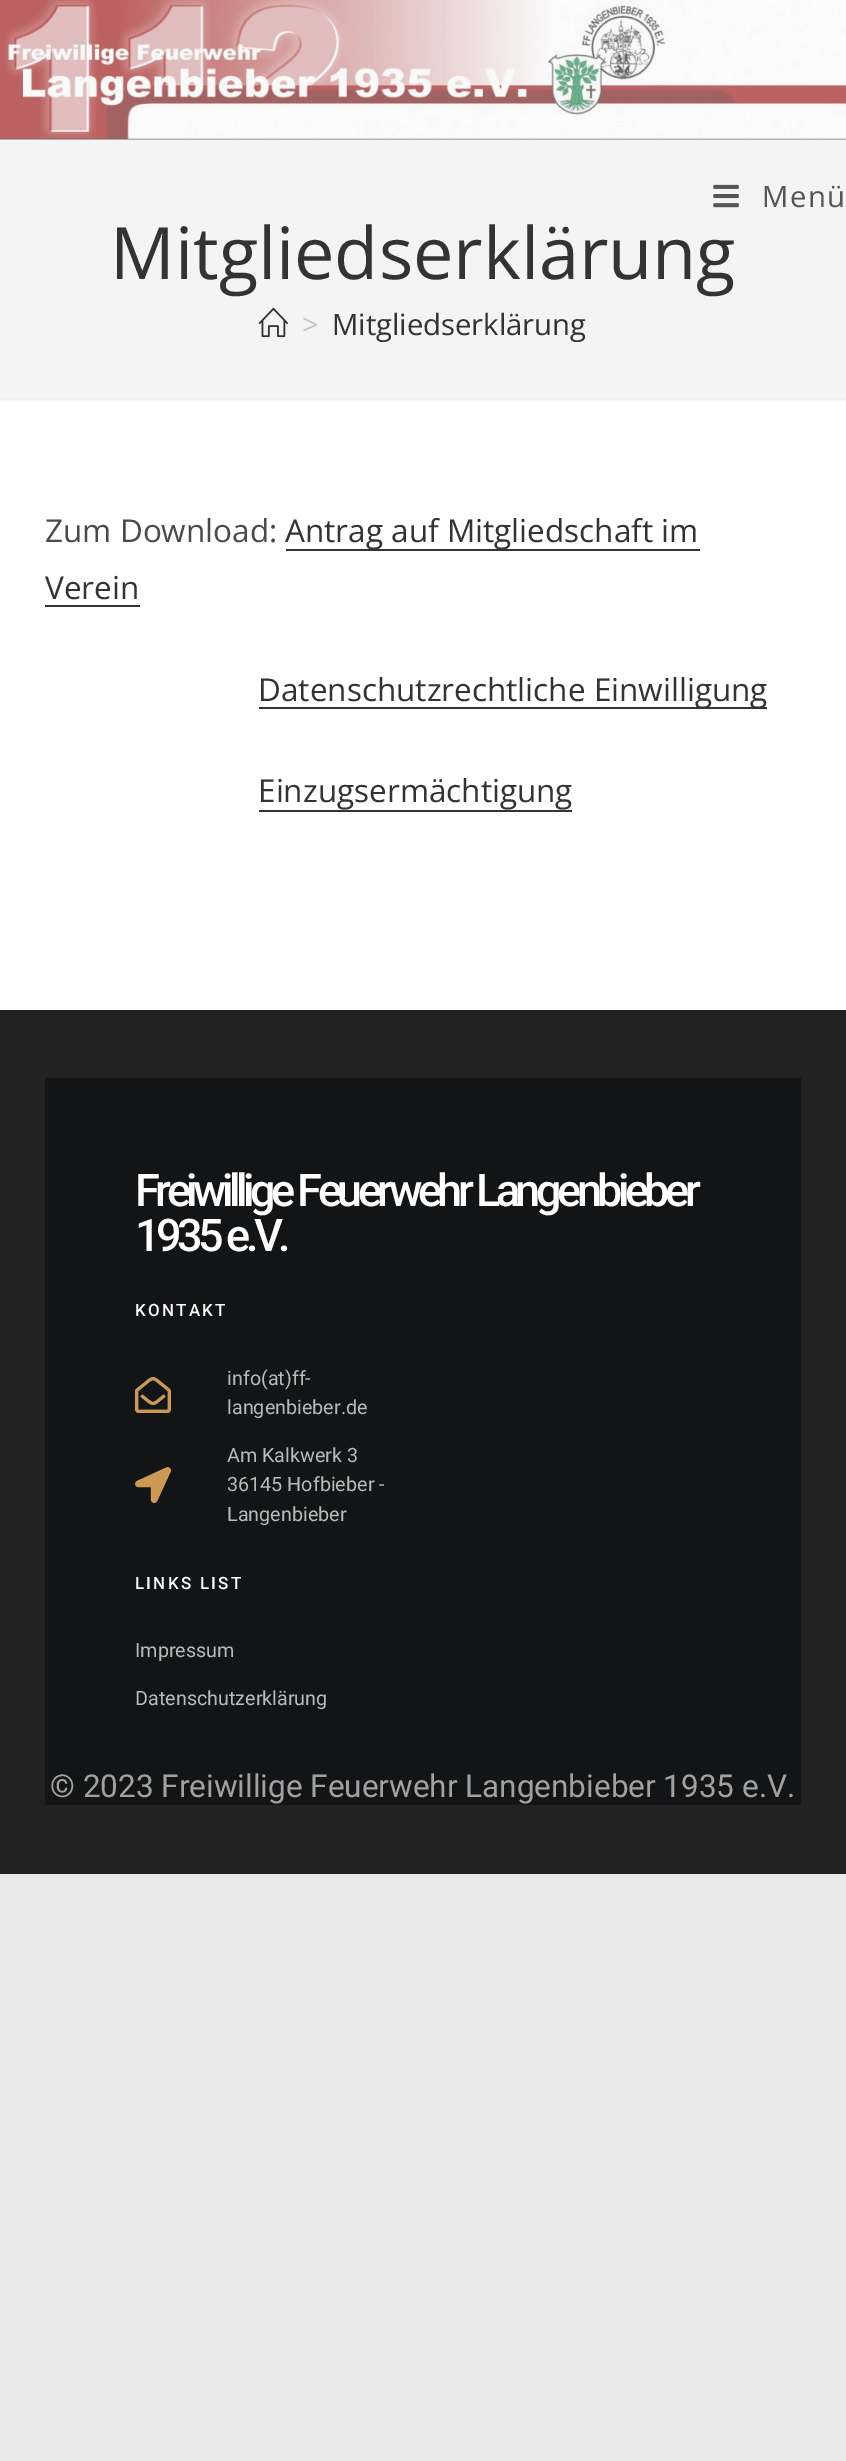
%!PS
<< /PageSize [846 2461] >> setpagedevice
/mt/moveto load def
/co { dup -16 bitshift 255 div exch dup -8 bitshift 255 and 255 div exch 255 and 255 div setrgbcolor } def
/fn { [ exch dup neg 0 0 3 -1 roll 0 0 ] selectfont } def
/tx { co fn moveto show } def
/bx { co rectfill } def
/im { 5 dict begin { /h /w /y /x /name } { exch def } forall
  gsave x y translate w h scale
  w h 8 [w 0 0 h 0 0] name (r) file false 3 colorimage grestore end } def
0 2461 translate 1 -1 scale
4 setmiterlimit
0 0 846 2461 16#E9E9E9 bx
0 401 846 609 16#FFFFFF bx
0 0 846 401 16#F4F4F4 bx
(media/1.raw) 0 0 846 140 im
(media/2.raw) 713 184 26 24 im
0 398 846 2 16#F1F1F1 bx
(media/3.raw) 258 307 30 31 im
286 549 414 2 16#333333 bx
45 605 95 2 16#333333 bx
259 707 508 2 16#333333 bx
259 810 313 2 16#333333 bx
0 1010 846 864 16#222222 bx
45 1078 756 727 16#121416 bx
(media/4.raw) 135 1377 36 36 im
(media/5.raw) 135 1467 37 36 im
/OpenSans-Regular 29.25 fn
16#555555 co
762 207 mt 1.5 0 (Menü) ashow
(Mitgliedserklärung) 110 279 /OpenSans-Regular 72 16#333333 tx
(>) 302 335 /OpenSans-Regular 29.25 16#C6C6C6 tx
(Mitgliedserklärung) 332 335 /OpenSans-Regular 29.25 16#333333 tx
(Zum Download:) 45 542 /OpenSans-Regular 31.5 16#4A4A4A tx
(Antrag auf Mitgliedschaft im) 285 542 /OpenSans-Regular 31.5 16#333333 tx
(Verein) 45 599 /OpenSans-Regular 31.5 16#333333 tx
(Datenschutzrechtliche Einwilligung) 258 701 /OpenSans-Regular 31.5 16#333333 tx
(Einzugsermächtigung) 258 802 /OpenSans-Regular 31.5 16#333333 tx
/Roboto-Medium 45 fn
16#FFFFFF co
135 1206 mt -4.5 0 (Freiwillige Feuerwehr Langenbieber) ashow
135 1251 mt -4.5 0 (1935 e.V.) ashow
/Roboto-Medium 17 fn
135 1316 mt 2.25 0 (KONTAKT) ashow
(info\(at\)ff-) 227 1385 /Roboto-Regular 19.75 16#B8B9B9 tx
(langenbieber.de) 227 1414 /Roboto-Regular 19.75 16#B8B9B9 tx
(Am Kalkwerk 3) 227 1462 /Roboto-Regular 19.75 16#B8B9B9 tx
(36145 Hofbieber -) 227 1491 /Roboto-Regular 19.75 16#B8B9B9 tx
(Langenbieber) 227 1521 /Roboto-Regular 19.75 16#B8B9B9 tx
/Roboto-Medium 17 fn
16#FFFFFF co
135 1589 mt 2.25 0 (LINKS LIST) ashow
(Impressum) 135 1657 /Roboto-Regular 19.75 16#B8B9B9 tx
(Datenschutzerklärung) 135 1705 /Roboto-Regular 19.75 16#B8B9B9 tx
(© 2023 Freiwillige Feuerwehr Langenbieber 1935 e.V.) 50 1797 /Roboto-Regular 31.5 16#A1A1A1 tx
showpage
